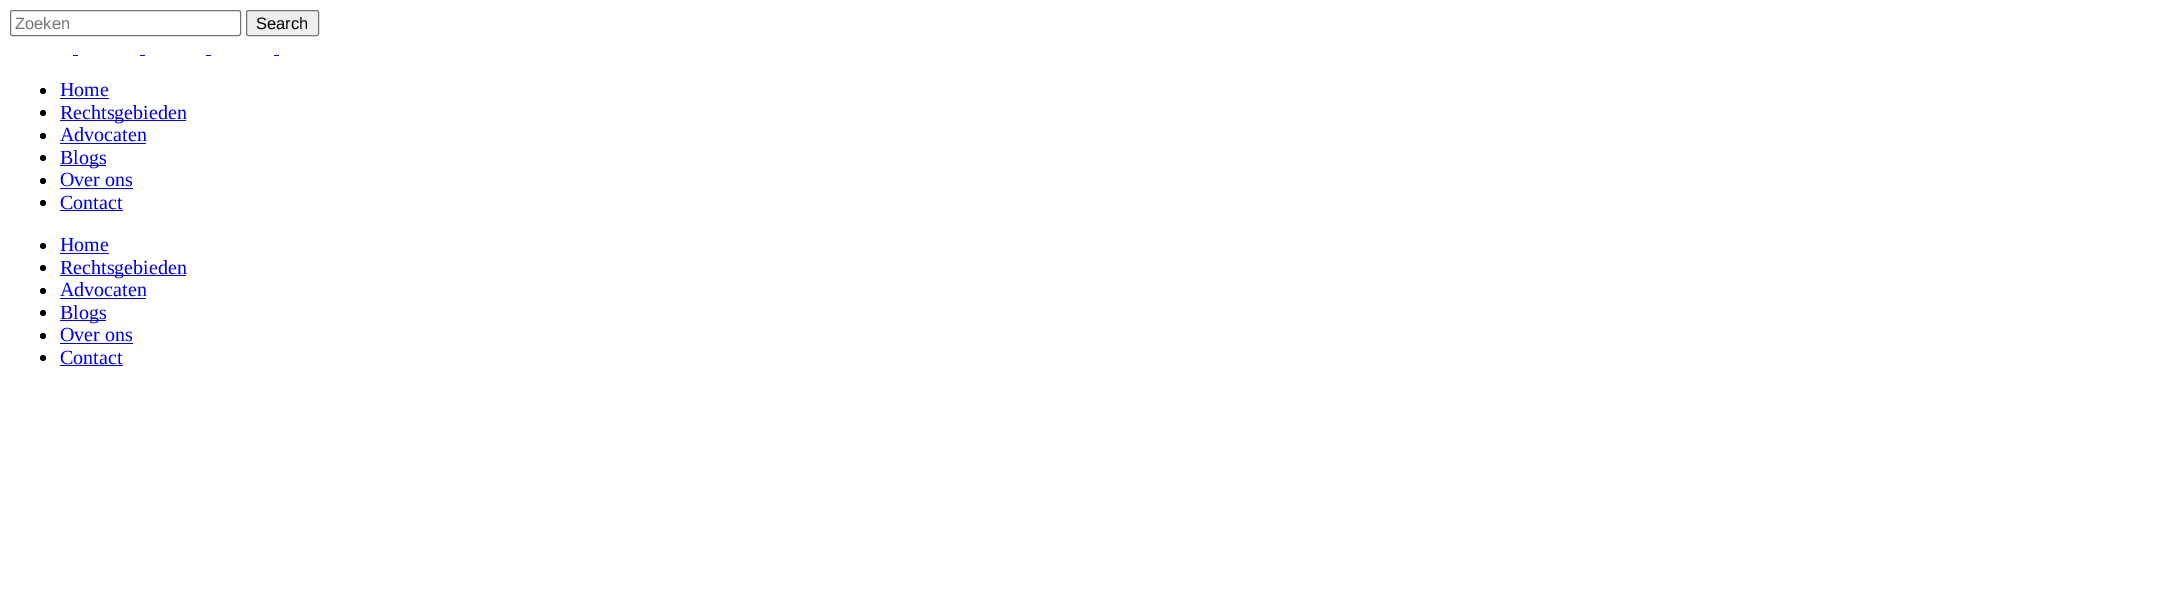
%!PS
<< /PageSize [2159 602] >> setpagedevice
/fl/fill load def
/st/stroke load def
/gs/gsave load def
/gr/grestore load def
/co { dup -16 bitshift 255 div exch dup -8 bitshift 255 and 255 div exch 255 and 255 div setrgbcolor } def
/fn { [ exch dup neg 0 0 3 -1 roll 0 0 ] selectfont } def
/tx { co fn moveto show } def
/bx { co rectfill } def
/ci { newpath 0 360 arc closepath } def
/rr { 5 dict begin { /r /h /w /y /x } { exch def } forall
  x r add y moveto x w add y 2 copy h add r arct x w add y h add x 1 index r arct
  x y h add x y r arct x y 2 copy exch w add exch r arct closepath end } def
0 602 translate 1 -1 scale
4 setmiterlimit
0 0 2159 602 16#FFFFFF bx
16#767676 co
10.5 10.5 230 25 2 rr st
16#EFEFEF co
246.5 10.5 72 25 2 rr gs fl gr
16#767676 co
st
73 55 5 1 16#0000EE bx
140 55 5 1 16#0000EE bx
206 55 5 1 16#0000EE bx
274 55 5 1 16#0000EE bx
16#000000 co
43 91 3 ci fl
60 98 49 1 16#0000EE bx
16#000000 co
43 113 3 ci fl
60 120 126 1 16#0000EE bx
16#000000 co
43 136 3 ci fl
60 143 86 1 16#0000EE bx
16#000000 co
43 158 3 ci fl
60 165 46 1 16#0000EE bx
16#000000 co
43 181 3 ci fl
60 188 73 1 16#0000EE bx
16#000000 co
43 203 3 ci fl
60 210 63 1 16#0000EE bx
16#000000 co
43 246 3 ci fl
60 253 49 1 16#0000EE bx
16#000000 co
43 268 3 ci fl
60 275 126 1 16#0000EE bx
16#000000 co
43 291 3 ci fl
60 298 86 1 16#0000EE bx
16#000000 co
43 313 3 ci fl
60 320 46 1 16#0000EE bx
16#000000 co
43 336 3 ci fl
60 343 73 1 16#0000EE bx
16#000000 co
43 358 3 ci fl
60 365 63 1 16#0000EE bx
(Zoeken) 15 29 /LiberationSans-Regular 16.5 16#757575 tx
(Search) 256 29 /LiberationSans-Regular 16.5 16#000000 tx
(Home) 60 96 /LiberationSerif-Regular 20 16#0000EE tx
(Rechtsgebieden) 60 119 /LiberationSerif-Regular 20 16#0000EE tx
(Advocaten) 60 141 /LiberationSerif-Regular 20 16#0000EE tx
(Blogs) 60 164 /LiberationSerif-Regular 20 16#0000EE tx
(Over ons) 60 186 /LiberationSerif-Regular 20 16#0000EE tx
(Contact) 60 209 /LiberationSerif-Regular 20 16#0000EE tx
(Home) 60 251 /LiberationSerif-Regular 20 16#0000EE tx
(Rechtsgebieden) 60 274 /LiberationSerif-Regular 20 16#0000EE tx
(Advocaten) 60 296 /LiberationSerif-Regular 20 16#0000EE tx
(Blogs) 60 319 /LiberationSerif-Regular 20 16#0000EE tx
(Over ons) 60 341 /LiberationSerif-Regular 20 16#0000EE tx
(Contact) 60 364 /LiberationSerif-Regular 20 16#0000EE tx
showpage
